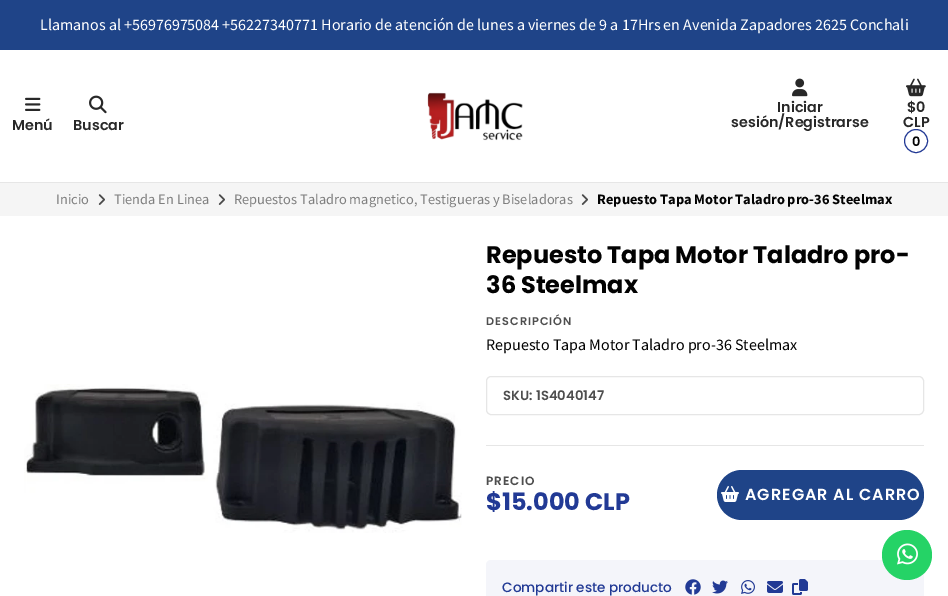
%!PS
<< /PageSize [948 596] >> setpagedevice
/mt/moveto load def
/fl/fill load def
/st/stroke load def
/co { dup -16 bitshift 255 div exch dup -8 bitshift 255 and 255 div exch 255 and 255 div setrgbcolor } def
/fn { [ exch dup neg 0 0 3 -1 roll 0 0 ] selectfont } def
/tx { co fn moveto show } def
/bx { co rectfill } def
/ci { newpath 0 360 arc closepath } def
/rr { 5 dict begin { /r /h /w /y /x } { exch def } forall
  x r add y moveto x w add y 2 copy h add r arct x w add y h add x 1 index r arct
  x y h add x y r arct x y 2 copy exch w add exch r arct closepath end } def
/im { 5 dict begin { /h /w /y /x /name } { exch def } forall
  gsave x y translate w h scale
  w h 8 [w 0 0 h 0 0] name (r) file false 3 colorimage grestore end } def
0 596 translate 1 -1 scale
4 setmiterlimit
0 0 948 596 16#FFFFFF bx
0 182 948 1 16#E6E6E6 bx
0 0 948 50 16#1F4488 bx
(media/1.raw) 25 97 16 14 im
(media/2.raw) 89 95 18 19 im
(media/3.raw) 427 92 96 49 im
(media/4.raw) 792 78 16 19 im
(media/5.raw) 906 78 20 19 im
16#233A95 co
916 141 11.5 ci st
0 183 948 33 16#F5F5F5 bx
(media/6.raw) 98 194 7 11 im
(media/6.raw) 218 194 7 11 im
(media/6.raw) 581 194 7 11 im
(media/7.raw) 24 384 438 149 im
16#E6E6E6 co
486.5 376.5 437 38 4.5 rr st
486 445 438 1 16#E6E6E6 bx
16#1F4488 co
717 470 207 50 25 rr fl
(media/8.raw) 721 486 18 16 im
16#F4F5FA co
486 560 438 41 5 rr fl
(media/9.raw) 685 579 16 16 im
(media/10.raw) 712 580 16 14 im
(media/11.raw) 741 580 14 14 im
(media/12.raw) 767 581 16 12 im
(media/13.raw) 792 579 16 16 im
16#25D366 co
907 555 25 ci fl
(media/14.raw) 897 543 21 22 im
(Llamanos al +56976975084 +56227340771 Horario de atención de lunes a viernes de 9 a 17Hrs en Avenida Zapadores 2625 Conchali) 40 30 /SourceSansPro-Regular 16 16#FFFFFF tx
(Menú) 12 130 /Poppins-SemiBold 14.4 16#282828 tx
(Buscar) 73 130 /Poppins-SemiBold 14.4 16#282828 tx
(Iniciar) 777 112 /Poppins-SemiBold 14.4 16#282828 tx
(sesión/Registrarse) 731 127 /Poppins-SemiBold 14.4 16#282828 tx
($0) 907 112 /Poppins-SemiBold 14.4 16#282828 tx
(CLP) 903 127 /Poppins-SemiBold 14.4 16#282828 tx
(0) 912 146 /Poppins-SemiBold 13 16#020202 tx
(Inicio) 56 204 /SourceSansPro-Regular 14.4 16#7E7E7E tx
(Tienda En Linea) 114 204 /SourceSansPro-Regular 14.4 16#7E7E7E tx
(Repuestos Taladro magnetico, Testigueras y Biseladoras) 234 204 /SourceSansPro-Regular 14.4 16#7E7E7E tx
(Repuesto Tapa Motor Taladro pro-36 Steelmax) 597 204 /SourceSansPro-Bold 14.4 16#020202 tx
(Repuesto Tapa Motor Taladro pro-) 486 263 /Poppins-Bold 24 16#020202 tx
(36 Steelmax) 486 293 /Poppins-Bold 24 16#020202 tx
/Poppins-SemiBold 11.25 fn
16#4E4E4E co
486 325 mt 1 0 (DESCRIPCIÓN) ashow
(Repuesto Tapa Motor Taladro pro-36 Steelmax) 486 350 /SourceSansPro-Regular 16 16#020202 tx
(SKU: 1S4040147) 503 400 /Poppins-SemiBold 13.25 16#4E4E4E tx
/Poppins-SemiBold 12 fn
486 485 mt 1 0 (PRECIO) ashow
($15.000 CLP) 486 510 /Poppins-Bold 24 16#223A95 tx
/Poppins-SemiBold 16 fn
16#FFFFFF co
745 500 mt 1 0 (AGREGAR AL CARRO) ashow
(Compartir este producto) 502 592 /Poppins-Medium 13.6 16#223A95 tx
showpage
